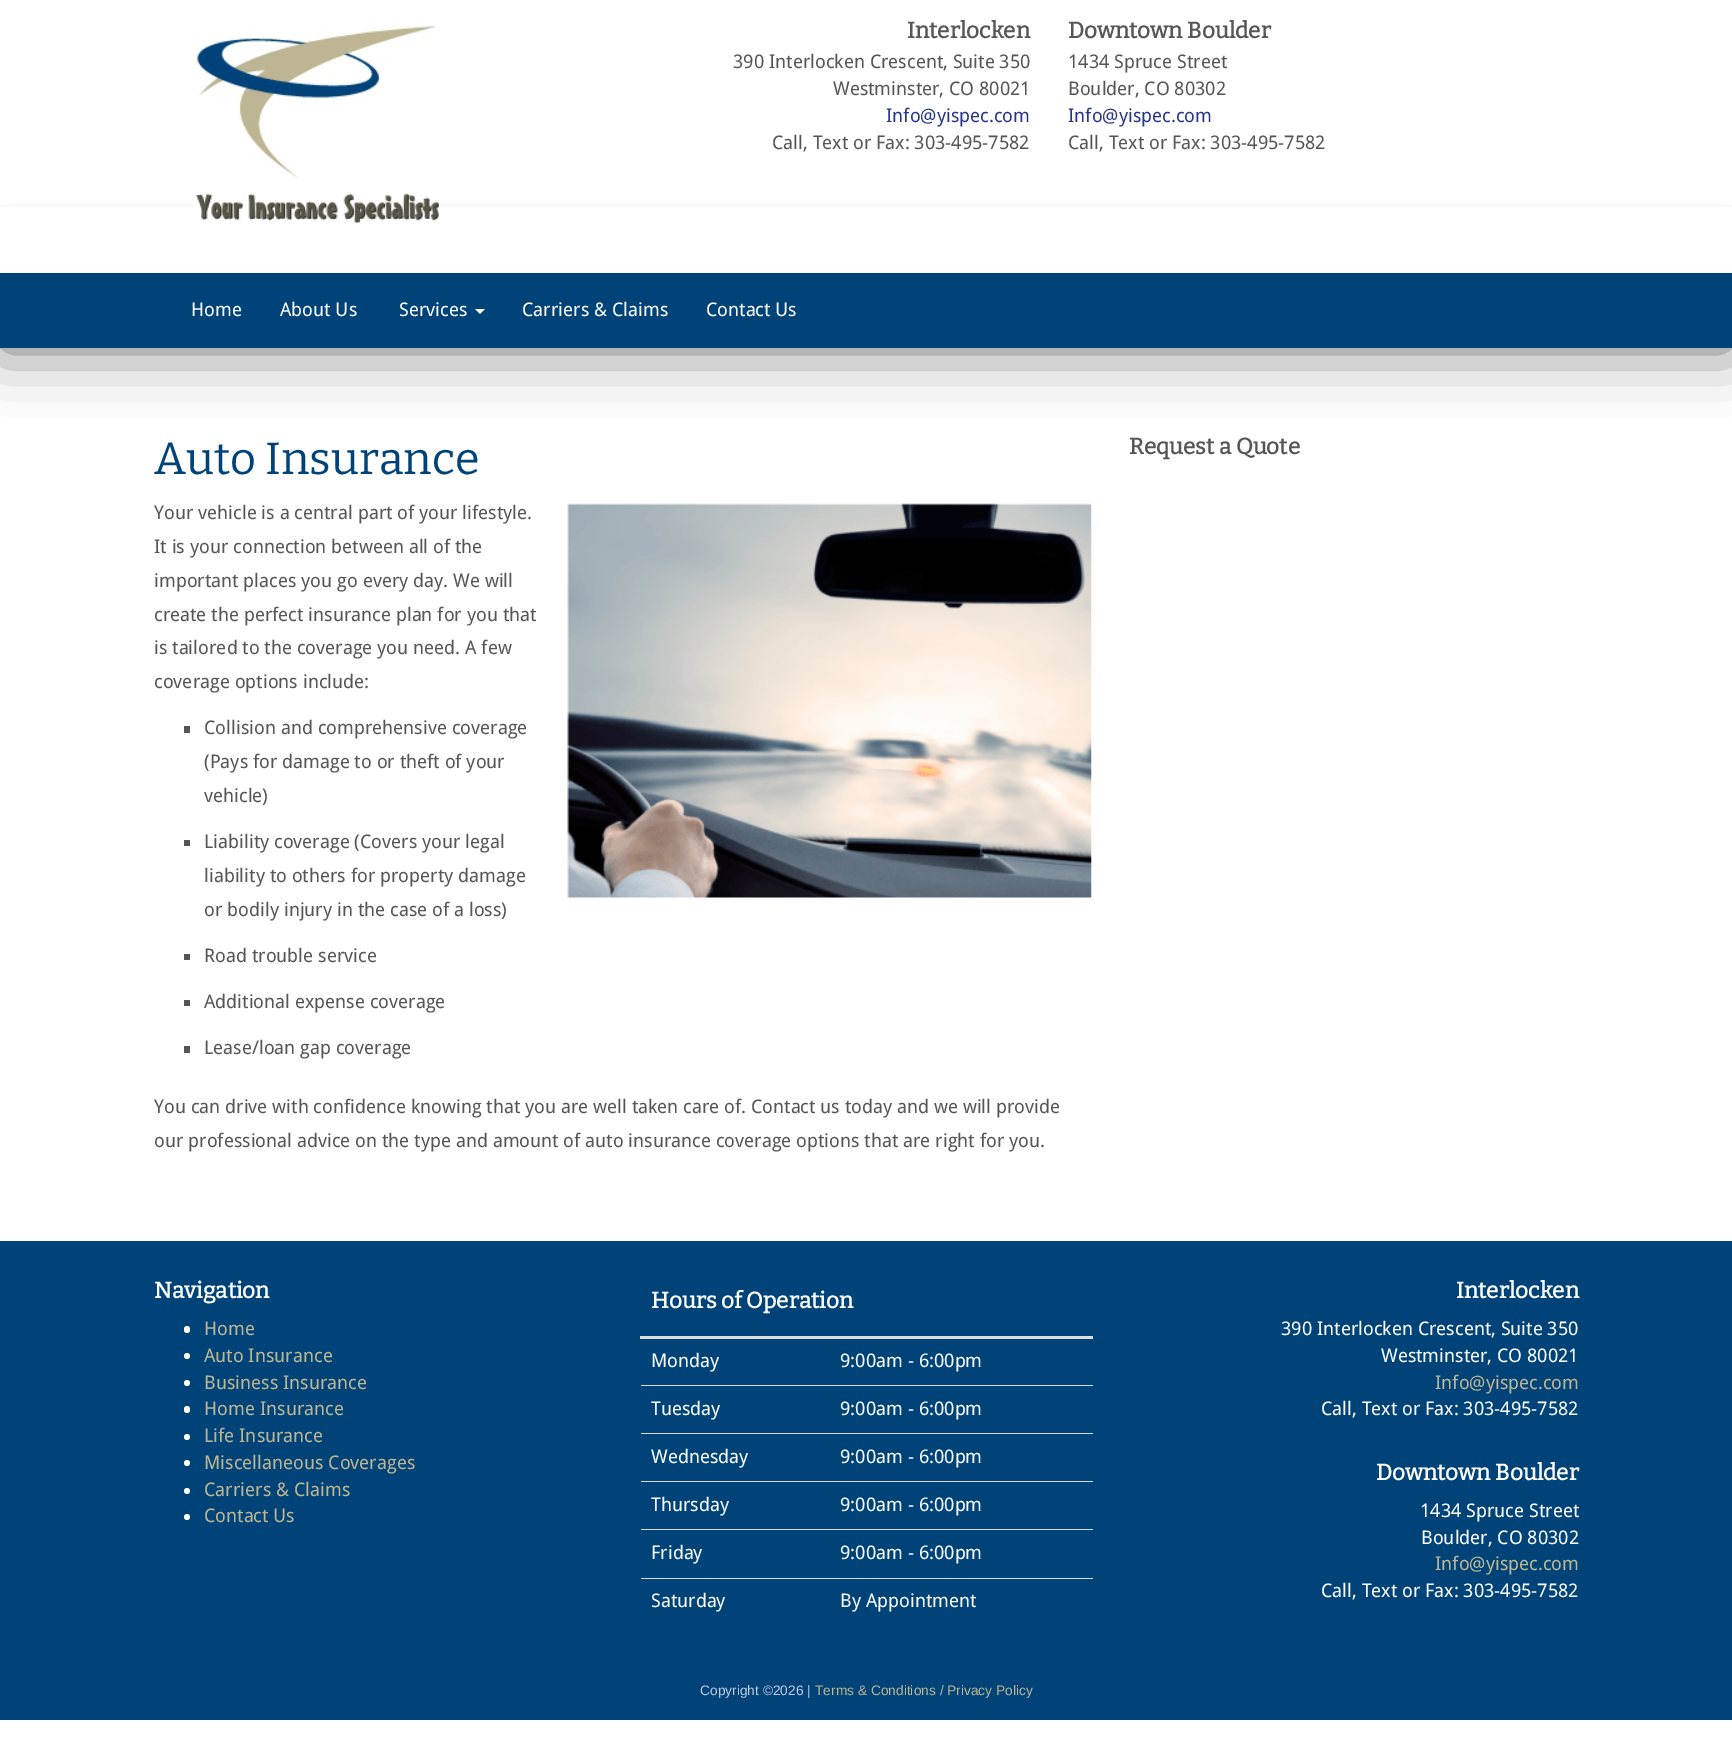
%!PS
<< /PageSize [1732 1752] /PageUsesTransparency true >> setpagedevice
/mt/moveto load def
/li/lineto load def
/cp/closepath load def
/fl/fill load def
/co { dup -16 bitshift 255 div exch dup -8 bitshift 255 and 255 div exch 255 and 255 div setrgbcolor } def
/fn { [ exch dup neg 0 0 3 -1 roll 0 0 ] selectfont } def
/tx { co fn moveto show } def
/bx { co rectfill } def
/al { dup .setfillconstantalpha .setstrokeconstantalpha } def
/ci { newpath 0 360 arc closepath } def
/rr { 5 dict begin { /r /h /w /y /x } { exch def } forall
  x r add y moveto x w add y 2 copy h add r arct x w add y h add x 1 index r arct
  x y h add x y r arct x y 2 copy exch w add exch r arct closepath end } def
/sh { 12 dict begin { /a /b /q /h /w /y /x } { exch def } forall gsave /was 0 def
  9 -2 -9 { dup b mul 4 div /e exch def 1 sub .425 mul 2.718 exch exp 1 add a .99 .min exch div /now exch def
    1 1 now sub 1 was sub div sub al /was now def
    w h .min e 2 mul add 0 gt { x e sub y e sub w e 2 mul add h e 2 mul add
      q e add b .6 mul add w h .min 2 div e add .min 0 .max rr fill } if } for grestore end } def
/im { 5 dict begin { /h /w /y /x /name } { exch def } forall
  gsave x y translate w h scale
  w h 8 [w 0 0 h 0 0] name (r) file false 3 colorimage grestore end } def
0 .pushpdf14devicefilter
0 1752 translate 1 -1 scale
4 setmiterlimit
0 0 1732 1752 16#FFFFFF bx
16#676767 co
0 273 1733 75 0 31 1 sh
0 207 1732 66 16#FFFFFF bx
(media/1.raw) 194 22 245 201 im
0 273 1732 75 16#004378 bx
16#FFFFFF co
475 309 mt 485 309 li 480 314 li cp fl
(media/2.raw) 567 503 525 395 im
184 726 6 7 16#565656 bx
184 840 6 6 16#565656 bx
184 954 6 6 16#565656 bx
184 1000 6 6 16#565656 bx
184 1046 6 7 16#565656 bx
0 1241 1732 479 16#004378 bx
16#FFFFFF co
184 1326 6 7 3 rr fl
187 1356 3 ci fl
187 1383 3 ci fl
184 1406 6 7 3 rr fl
187 1437 3 ci fl
187 1463 3 ci fl
187 1491 3 ci fl
187 1517 3 ci fl
640 1336 453 3 16#DDDDDD bx
641 1385 452 1 16#DDDDDD bx
641 1433 452 1 16#DDDDDD bx
641 1481 452 1 16#DDDDDD bx
641 1529 452 1 16#DDDDDD bx
641 1578 452 1 16#DDDDDD bx
(Interlocken) 907 38 /Bitter-Bold 22.5 16#565656 tx
(390 Interlocken Crescent, Suite 350) 733 68 /DroidSans-Regular 18.75 16#565656 tx
(Westminster, CO 80021) 833 95 /DroidSans-Regular 18.75 16#565656 tx
(Info@yispec.com) 886 122 /DroidSans-Regular 18.75 16#283688 tx
(Call, Text or Fax: 303-495-7582) 772 149 /DroidSans-Regular 18.75 16#565656 tx
(Downtown Boulder) 1068 38 /Bitter-Bold 22.5 16#565656 tx
(1434 Spruce Street) 1068 68 /DroidSans-Regular 18.75 16#565656 tx
(Boulder, CO 80302) 1068 95 /DroidSans-Regular 18.75 16#565656 tx
(Info@yispec.com) 1068 122 /DroidSans-Regular 18.75 16#283688 tx
(Call, Text or Fax: 303-495-7582) 1068 149 /DroidSans-Regular 18.75 16#565656 tx
(Home) 191 316 /DroidSans-Regular 18.75 16#FFFFFF tx
(About Us) 280 316 /DroidSans-Regular 18.75 16#FFFFFF tx
(Services) 399 316 /DroidSans-Regular 18.75 16#FFFFFF tx
(Carriers & Claims) 522 316 /DroidSans-Regular 18.75 16#FFFFFF tx
(Contact Us) 706 316 /DroidSans-Regular 18.75 16#FFFFFF tx
(Auto Insurance) 154 474 /Bitter-Thin 45 16#004378 tx
(Your vehicle is a central part of your lifestyle.) 154 519 /DroidSans-Regular 18.75 16#565656 tx
(It is your connection between all of the) 154 553 /DroidSans-Regular 18.75 16#565656 tx
(important places you go every day. We will) 154 587 /DroidSans-Regular 18.75 16#565656 tx
(create the perfect insurance plan for you that) 154 621 /DroidSans-Regular 18.75 16#565656 tx
(is tailored to the coverage you need. A few) 154 654 /DroidSans-Regular 18.75 16#565656 tx
(coverage options include:) 154 688 /DroidSans-Regular 18.75 16#565656 tx
(Collision and comprehensive coverage) 204 734 /DroidSans-Regular 18.75 16#565656 tx
(\(Pays for damage to or theft of your) 204 768 /DroidSans-Regular 18.75 16#565656 tx
(vehicle\)) 204 802 /DroidSans-Regular 18.75 16#565656 tx
(Liability coverage \(Covers your legal) 204 848 /DroidSans-Regular 18.75 16#565656 tx
(liability to others for property damage) 204 882 /DroidSans-Regular 18.75 16#565656 tx
(or bodily injury in the case of a loss\)) 204 916 /DroidSans-Regular 18.75 16#565656 tx
(Road trouble service) 204 962 /DroidSans-Regular 18.75 16#565656 tx
(Additional expense coverage) 204 1008 /DroidSans-Regular 18.75 16#565656 tx
(Lease/loan gap coverage) 204 1054 /DroidSans-Regular 18.75 16#565656 tx
(You can drive with confidence knowing that you are well taken care of. Contact us today and we will provide) 154 1113 /DroidSans-Regular 18.75 16#565656 tx
(our professional advice on the type and amount of auto insurance coverage options that are right for you.) 154 1147 /DroidSans-Regular 18.75 16#565656 tx
(Request a Quote) 1129 454 /Bitter-Bold 22.5 16#565656 tx
(Navigation) 154 1298 /Bitter-Bold 22.5 16#FFFFFF tx
(Home) 204 1335 /DroidSans-Regular 18.75 16#BEB692 tx
(Auto Insurance) 204 1362 /DroidSans-Regular 18.75 16#BEB692 tx
(Business Insurance) 204 1389 /DroidSans-Regular 18.75 16#BEB692 tx
(Home Insurance) 204 1415 /DroidSans-Regular 18.75 16#BEB692 tx
(Life Insurance) 204 1442 /DroidSans-Regular 18.75 16#BEB692 tx
(Miscellaneous Coverages) 204 1469 /DroidSans-Regular 18.75 16#BEB692 tx
(Carriers & Claims) 204 1496 /DroidSans-Regular 18.75 16#BEB692 tx
(Contact Us) 204 1522 /DroidSans-Regular 18.75 16#BEB692 tx
(Hours of Operation) 651 1308 /Bitter-Bold 22.5 16#FFFFFF tx
(Monday) 651 1367 /DroidSans-Regular 18.75 16#FFFFFF tx
(9:00am - 6:00pm) 840 1367 /DroidSans-Regular 18.75 16#FFFFFF tx
(Tuesday) 651 1415 /DroidSans-Regular 18.75 16#FFFFFF tx
(9:00am - 6:00pm) 840 1415 /DroidSans-Regular 18.75 16#FFFFFF tx
(Wednesday) 651 1463 /DroidSans-Regular 18.75 16#FFFFFF tx
(9:00am - 6:00pm) 840 1463 /DroidSans-Regular 18.75 16#FFFFFF tx
(Thursday) 651 1511 /DroidSans-Regular 18.75 16#FFFFFF tx
(9:00am - 6:00pm) 840 1511 /DroidSans-Regular 18.75 16#FFFFFF tx
(Friday) 651 1559 /DroidSans-Regular 18.75 16#FFFFFF tx
(9:00am - 6:00pm) 840 1559 /DroidSans-Regular 18.75 16#FFFFFF tx
(Saturday) 651 1607 /DroidSans-Regular 18.75 16#FFFFFF tx
(By Appointment) 840 1607 /DroidSans-Regular 18.75 16#FFFFFF tx
(Interlocken) 1456 1298 /Bitter-Bold 22.5 16#FFFFFF tx
(390 Interlocken Crescent, Suite 350) 1281 1335 /DroidSans-Regular 18.75 16#FFFFFF tx
(Westminster, CO 80021) 1381 1362 /DroidSans-Regular 18.75 16#FFFFFF tx
(Info@yispec.com) 1435 1389 /DroidSans-Regular 18.75 16#BEB692 tx
(Call, Text or Fax: 303-495-7582) 1321 1415 /DroidSans-Regular 18.75 16#FFFFFF tx
(Downtown Boulder) 1376 1480 /Bitter-Bold 22.5 16#FFFFFF tx
(1434 Spruce Street) 1420 1517 /DroidSans-Regular 18.75 16#FFFFFF tx
(Boulder, CO 80302) 1421 1544 /DroidSans-Regular 18.75 16#FFFFFF tx
(Info@yispec.com) 1435 1570 /DroidSans-Regular 18.75 16#BEB692 tx
(Call, Text or Fax: 303-495-7582) 1321 1597 /DroidSans-Regular 18.75 16#FFFFFF tx
(Copyright ©2026 |) 700 1695 /LiberationSans-Regular 13.75 16#C6CBE4 tx
(Terms & Conditions / Privacy Policy) 815 1695 /LiberationSans-Regular 13.75 16#BEB692 tx
.poppdf14devicefilter showpage
